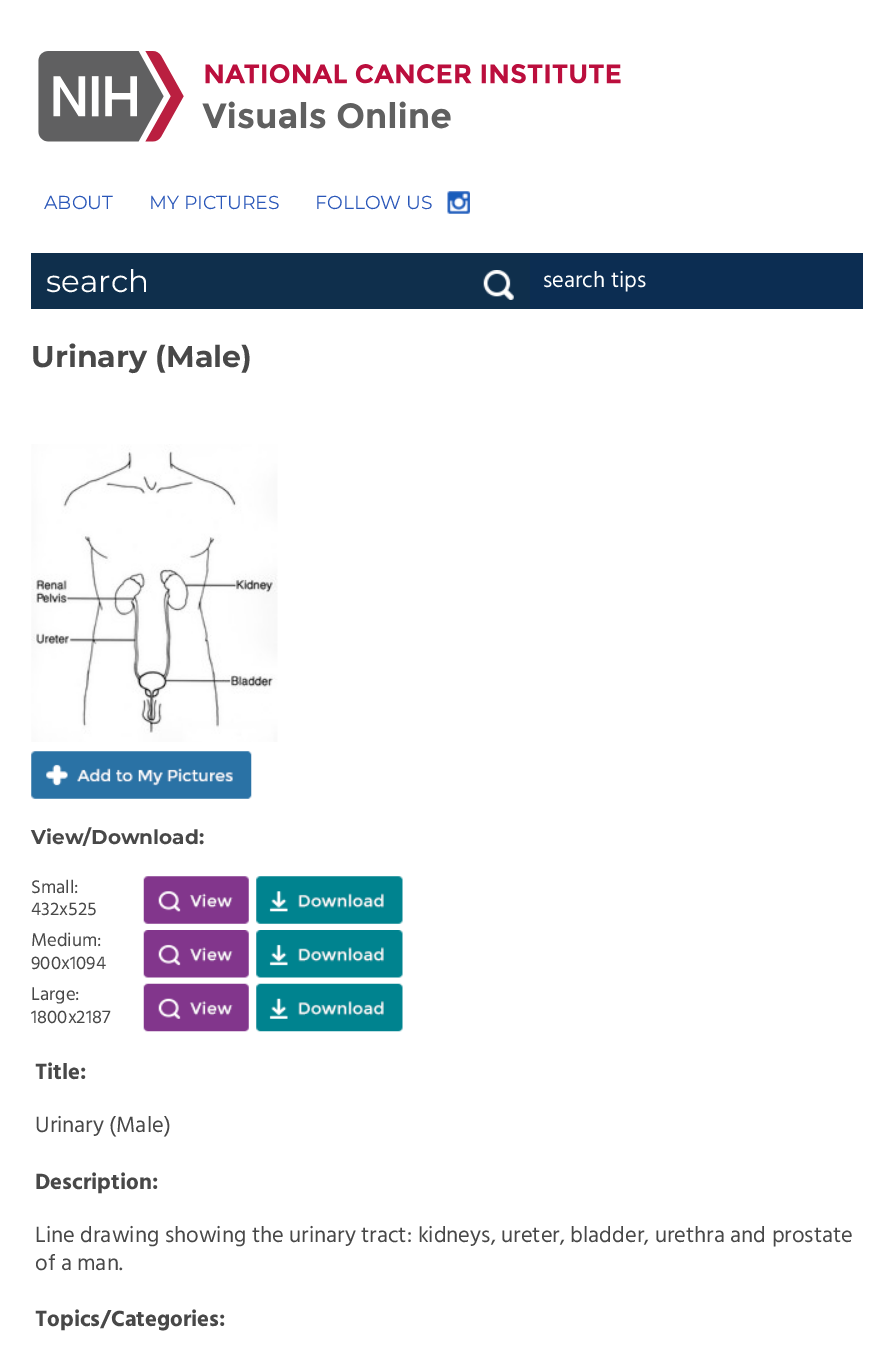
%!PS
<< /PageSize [893 1349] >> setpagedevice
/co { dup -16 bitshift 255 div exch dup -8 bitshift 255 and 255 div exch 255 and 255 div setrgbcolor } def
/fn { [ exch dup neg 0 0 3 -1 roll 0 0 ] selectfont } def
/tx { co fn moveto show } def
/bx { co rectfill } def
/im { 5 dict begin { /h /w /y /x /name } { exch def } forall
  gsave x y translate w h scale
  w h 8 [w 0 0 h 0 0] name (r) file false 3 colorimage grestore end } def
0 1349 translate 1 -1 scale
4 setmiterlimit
0 0 893 1349 16#FFFFFF bx
(media/1.raw) 38 51 583 91 im
(media/2.raw) 447 191 23 23 im
530 253 333 56 16#0C2D52 bx
31 253 499 56 16#0F2F4C bx
(media/3.raw) 483 270 31 30 im
(media/4.raw) 31 444 247 298 im
(media/5.raw) 31 751 221 48 im
(media/6.raw) 143 876 106 48 im
(media/7.raw) 256 876 147 48 im
(media/8.raw) 143 930 106 48 im
(media/9.raw) 256 930 147 48 im
(media/10.raw) 143 983 106 49 im
(media/11.raw) 256 983 147 49 im
(ABOUT) 44 209 /Montserrat-Regular 18.75 16#2A57B9 tx
(MY PICTURES) 149 209 /Montserrat-Regular 18.75 16#2A57B9 tx
(FOLLOW US) 315 209 /Montserrat-Regular 18.75 16#2A57B9 tx
(search) 46 292 /Montserrat-Regular 31 16#FFFFFF tx
(search tips) 543 287 /Hind-Regular 22.5 16#FFFFFF tx
(Urinary \(Male\)) 31 367 /Montserrat-Bold 30 16#484848 tx
(View/Download:) 31 844 /Montserrat-Bold 20 16#484848 tx
(Small:) 31 893 /Hind-Regular 18.75 16#484848 tx
(432x525) 31 915 /Hind-Regular 18.75 16#484848 tx
(Medium:) 31 946 /Hind-Regular 18.75 16#484848 tx
(900x1094) 31 969 /Hind-Regular 18.75 16#484848 tx
(Large:) 31 1000 /Hind-Regular 18.75 16#484848 tx
(1800x2187) 31 1023 /Hind-Regular 18.75 16#484848 tx
(Title:) 35 1079 /Hind-Bold 22.5 16#484848 tx
(Urinary \(Male\)) 35 1132 /Hind-Regular 22.5 16#484848 tx
(Description:) 35 1189 /Hind-Bold 22.5 16#484848 tx
(Line drawing showing the urinary tract: kidneys, ureter, bladder, urethra and prostate) 35 1242 /Hind-Regular 22.5 16#484848 tx
(of a man.) 35 1270 /Hind-Regular 22.5 16#484848 tx
(Topics/Categories:) 35 1326 /Hind-Bold 22.5 16#484848 tx
showpage
